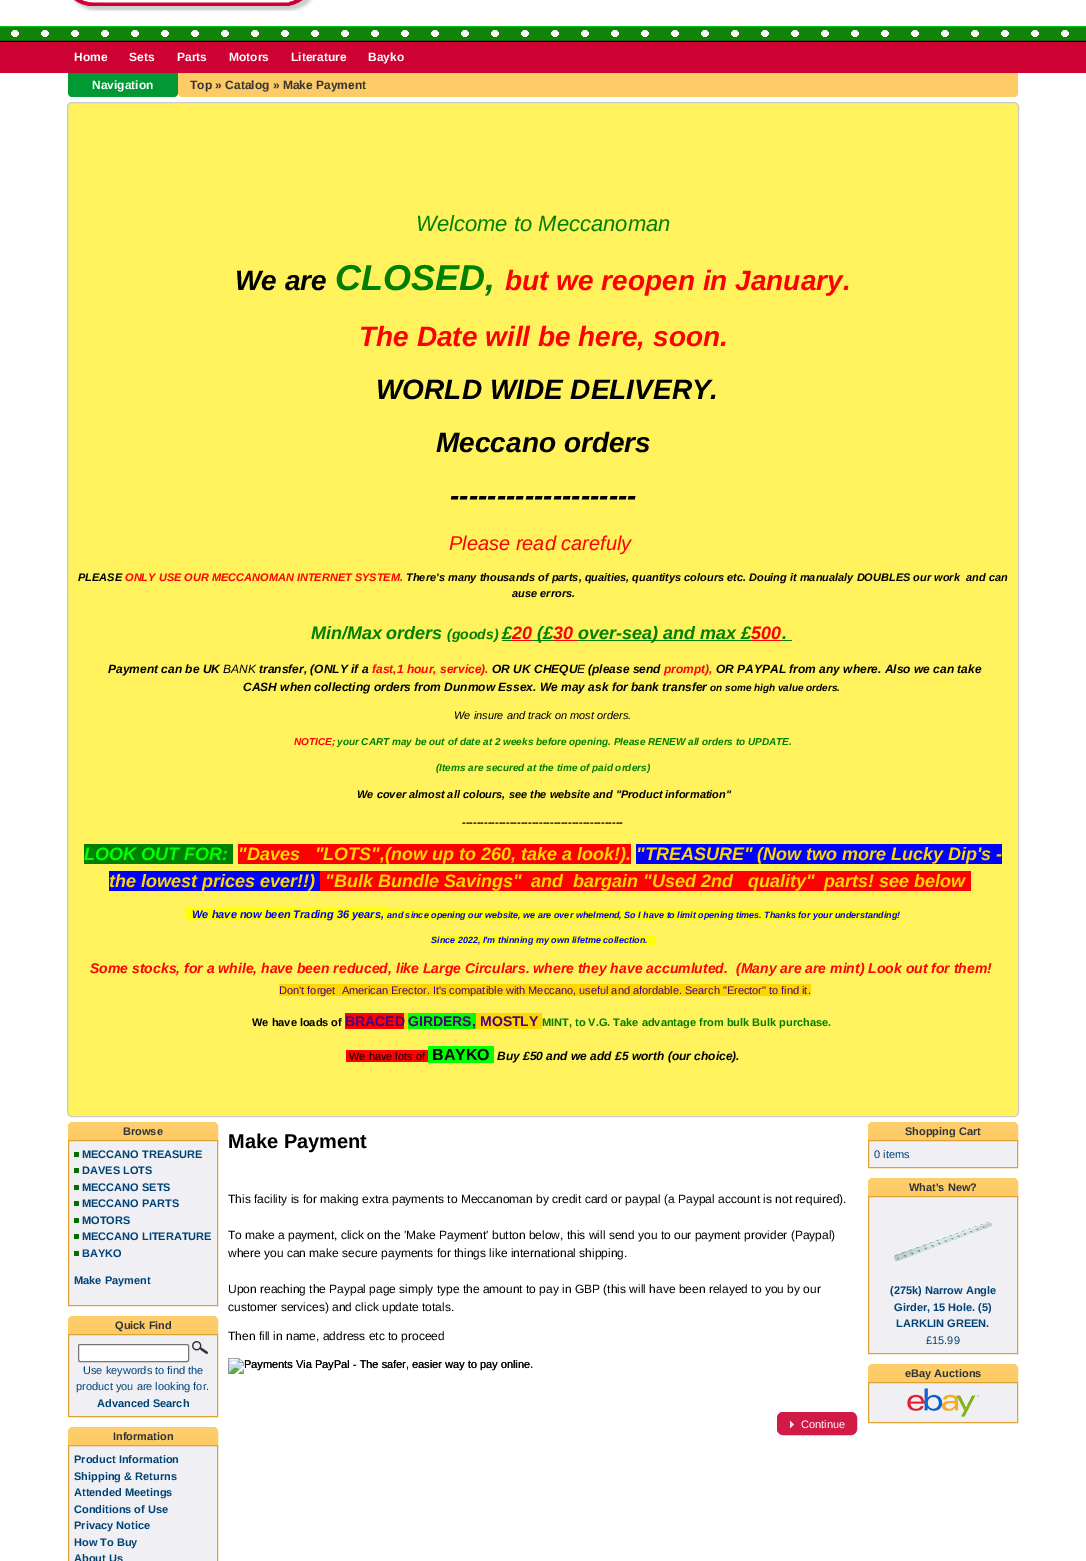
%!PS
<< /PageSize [1086 1561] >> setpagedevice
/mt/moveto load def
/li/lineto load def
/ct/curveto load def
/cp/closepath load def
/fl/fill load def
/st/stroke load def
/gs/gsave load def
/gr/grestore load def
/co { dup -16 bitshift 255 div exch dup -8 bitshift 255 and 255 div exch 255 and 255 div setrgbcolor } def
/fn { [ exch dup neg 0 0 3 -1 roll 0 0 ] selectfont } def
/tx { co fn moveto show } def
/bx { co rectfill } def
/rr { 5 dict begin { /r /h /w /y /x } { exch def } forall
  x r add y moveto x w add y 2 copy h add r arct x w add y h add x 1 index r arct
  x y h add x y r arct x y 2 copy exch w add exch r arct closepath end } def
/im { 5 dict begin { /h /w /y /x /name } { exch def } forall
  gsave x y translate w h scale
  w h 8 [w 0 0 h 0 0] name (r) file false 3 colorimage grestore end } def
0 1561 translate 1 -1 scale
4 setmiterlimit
0 0 1086 1561 16#FFFFFF bx
(media/1.raw) 0 26 1086 16 im
(media/2.raw) 71 0 243 11 im
0 42 1086 31 16#CD0132 bx
16#009933 co
68 73 mt 178 73 li 178 93 li 178 95 176 97 174 97 ct 72 97 li 70 97 68 95 68 93 ct cp fl
16#FDCB65 co
178 73 mt 1018 73 li 1018 93 li 1018 95 1016 97 1014 97 ct 182 97 li 180 97 178 95 178 93 ct cp fl
16#FFF25C co
67.5 102.5 951 1014 4.5 rr gs fl gr
16#CCCCCC co
st
502 640 10 1 16#008000 bx
512 640 20 1 16#FF0000 bx
532 640 21 1 16#008000 bx
578 640 173 1 16#008000 bx
782 640 10 1 16#008000 bx
84 844 149 20 16#008000 bx
238 844 393 20 16#FF0000 bx
636 844 366 20 16#0000FF bx
109 871 211 20 16#0000FF bx
320 871 651 20 16#FF0000 bx
186 908 201 12 16#FFFF00 bx
387 910 513 10 16#FFFF00 bx
431 935 224 10 16#FFFF00 bx
279 984 532 12 16#FFD700 bx
345 1013 59 16 16#FF0000 bx
404 1013 4 16 16#FFD700 bx
408 1013 68 16 16#00FF00 bx
476 1013 66 16 16#FFD700 bx
346 1050 82 12 16#FF0000 bx
428 1046 66 17 16#00FF00 bx
16#FDCB65 co
73 1122 mt 213 1122 li 216 1122 218 1124 218 1127 ct 218 1140 li 68 1140 li 68 1127 li 68 1124 70 1122 73 1122 ct cp fl
(media/3.raw) 68 1122 150 9 im
73 1122.5 mt 213 1122.5 li 215.5 1122.5 217.5 1124.5 217.5 1127 ct 217.5 1139.5 li 68.5 1139.5 li 68.5 1127 li 68.5 1124.5 70.5 1122.5 73 1122.5 ct cp st
16#F0F0F4 co
68.5 1140.5 mt 217.5 1140.5 li 217.5 1305.5 li 68.5 1305.5 li cp gs fl gr
16#E0A133 co
st
74 1152 5 5 16#086B04 bx
74 1168 5 5 16#086B04 bx
74 1185 5 5 16#086B04 bx
74 1201 5 5 16#086B04 bx
74 1218 5 5 16#086B04 bx
74 1234 5 5 16#086B04 bx
74 1251 5 5 16#086B04 bx
16#FDCB65 co
73 1316 mt 213 1316 li 216 1316 218 1318 218 1321 ct 218 1334 li 68 1334 li 68 1321 li 68 1318 70 1316 73 1316 ct cp fl
(media/3.raw) 68 1316 150 9 im
73 1316.5 mt 213 1316.5 li 215.5 1316.5 217.5 1318.5 217.5 1321 ct 217.5 1333.5 li 68.5 1333.5 li 68.5 1321 li 68.5 1318.5 70.5 1316.5 73 1316.5 ct cp st
16#F0F0F4 co
68.5 1334.5 mt 217.5 1334.5 li 217.5 1416.5 li 68.5 1416.5 li cp gs fl gr
16#E0A133 co
st
16#FFFFFF co
78.5 1344.5 110 17 1.5 rr gs fl gr
16#767676 co
st
(media/4.raw) 192 1341 16 13 im
16#FDCB65 co
73 1427 mt 213 1427 li 216 1427 218 1429 218 1432 ct 218 1445 li 68 1445 li 68 1432 li 68 1429 70 1427 73 1427 ct cp fl
(media/3.raw) 68 1427 150 9 im
73 1427.5 mt 213 1427.5 li 215.5 1427.5 217.5 1429.5 217.5 1432 ct 217.5 1444.5 li 68.5 1444.5 li 68.5 1432 li 68.5 1429.5 70.5 1427.5 73 1427.5 ct cp st
16#F0F0F4 co
68.5 1445.5 mt 217.5 1445.5 li 217.5 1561.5 li 68.5 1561.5 li cp gs fl gr
16#E0A133 co
st
(media/5.raw) 228 1358 305 16 im
16#D21A47 co
777.5 1412.5 79 22 5.5 rr gs fl gr
st
(media/6.raw) 790 1421 4 7 im
16#FDCB65 co
873 1122 mt 1013 1122 li 1016 1122 1018 1124 1018 1127 ct 1018 1140 li 868 1140 li 868 1127 li 868 1124 870 1122 873 1122 ct cp fl
(media/7.raw) 868 1122 150 9 im
873 1122.5 mt 1013 1122.5 li 1015.5 1122.5 1017.5 1124.5 1017.5 1127 ct 1017.5 1139.5 li 868.5 1139.5 li 868.5 1127 li 868.5 1124.5 870.5 1122.5 873 1122.5 ct cp st
16#F0F0F4 co
868.5 1140.5 mt 1017.5 1140.5 li 1017.5 1167.5 li 868.5 1167.5 li cp gs fl gr
16#E0A133 co
st
16#FDCB65 co
873 1178 mt 1013 1178 li 1016 1178 1018 1180 1018 1183 ct 1018 1196 li 868 1196 li 868 1183 li 868 1180 870 1178 873 1178 ct cp fl
(media/7.raw) 868 1178 150 9 im
873 1178.5 mt 1013 1178.5 li 1015.5 1178.5 1017.5 1180.5 1017.5 1183 ct 1017.5 1195.5 li 868.5 1195.5 li 868.5 1183 li 868.5 1180.5 870.5 1178.5 873 1178.5 ct cp st
16#F0F0F4 co
868.5 1196.5 mt 1017.5 1196.5 li 1017.5 1353.5 li 868.5 1353.5 li cp gs fl gr
16#E0A133 co
st
(media/8.raw) 893 1221 99 41 im
16#FDCB65 co
873 1364 mt 1013 1364 li 1016 1364 1018 1366 1018 1369 ct 1018 1382 li 868 1382 li 868 1369 li 868 1366 870 1364 873 1364 ct cp fl
(media/7.raw) 868 1364 150 9 im
873 1364.5 mt 1013 1364.5 li 1015.5 1364.5 1017.5 1366.5 1017.5 1369 ct 1017.5 1381.5 li 868.5 1381.5 li 868.5 1369 li 868.5 1366.5 870.5 1364.5 873 1364.5 ct cp st
16#F0F0F4 co
868.5 1382.5 mt 1017.5 1382.5 li 1017.5 1422.5 li 868.5 1422.5 li cp gs fl gr
16#E0A133 co
st
(media/9.raw) 907 1388 73 29 im
(Home) 74 61 /LiberationSans-Bold 12 16#FFFFFF tx
(Sets) 129 61 /LiberationSans-Bold 12 16#FFFFFF tx
(Parts) 177 61 /LiberationSans-Bold 12 16#FFFFFF tx
(Motors) 229 61 /LiberationSans-Bold 12 16#FFFFFF tx
(Literature) 291 61 /LiberationSans-Bold 12 16#FFFFFF tx
(Bayko) 368 61 /LiberationSans-Bold 12 16#FFFFFF tx
(Navigation) 92 89 /LiberationSans-Bold 12 16#FFFFFF tx
(Top » Catalog » Make Payment) 190 89 /LiberationSans-Bold 12 16#333333 tx
(Welcome to Meccanoman) 416 231 /LiberationSans-Italic 22 16#008000 tx
(We are) 235 290 /LiberationSans-BoldItalic 28 16#000000 tx
(CLOSED,) 335 290 /LiberationSans-BoldItalic 36 16#008000 tx
(but we reopen in January.) 505 290 /LiberationSans-BoldItalic 28 16#FF0000 tx
(The Date will be here, soon.) 359 346 /LiberationSans-BoldItalic 28 16#FF0000 tx
(WORLD WIDE DELIVERY.) 376 399 /LiberationSans-BoldItalic 28 16#000000 tx
(Meccano orders) 436 452 /LiberationSans-BoldItalic 28 16#000000 tx
(--------------------) 450 505 /LiberationSans-BoldItalic 28 16#000000 tx
(Please read carefuly) 449 550 /LiberationSans-Italic 20 16#FF0000 tx
(PLEASE) 78 581 /LiberationSans-BoldItalic 11 16#000000 tx
(ONLY USE OUR MECCANOMAN INTERNET SYSTEM.) 125 581 /LiberationSans-BoldItalic 11 16#FF0000 tx
(There's many thousands of parts, quaities, quantitys colours etc. Douing it manualaly DOUBLES our work  and can) 406 581 /LiberationSans-BoldItalic 11 16#000000 tx
(ause errors.) 512 597 /LiberationSans-BoldItalic 11 16#000000 tx
(Min/Max) 311 639 /LiberationSans-BoldItalic 18 16#008000 tx
(orders) 386 639 /LiberationSans-BoldItalic 18 16#008000 tx
(\(goods\)) 447 639 /LiberationSans-BoldItalic 14 16#008000 tx
(£) 502 639 /LiberationSans-BoldItalic 18 16#008000 tx
(20) 512 639 /LiberationSans-BoldItalic 18 16#FF0000 tx
(\(£) 537 639 /LiberationSans-BoldItalic 18 16#008000 tx
553 640 25 1 16#FF0000 bx
(30) 553 639 /LiberationSans-BoldItalic 18 16#FF0000 tx
(over-sea\) and max £) 578 639 /LiberationSans-BoldItalic 18 16#008000 tx
(500) 751 639 /LiberationSans-BoldItalic 18 16#FF0000 tx
751 640 31 1 16#FF0000 bx
(.) 782 639 /LiberationSans-BoldItalic 18 16#008000 tx
(Payment can be UK) 108 673 /LiberationSans-BoldItalic 12 16#000000 tx
(BANK) 223 673 /LiberationSans-Italic 12 16#000000 tx
(transfer, \(ONLY if a) 259 673 /LiberationSans-BoldItalic 12 16#000000 tx
(fast,1 hour, service\).) 372 673 /LiberationSans-BoldItalic 12 16#FF0000 tx
(OR UK CHEQU) 492 673 /LiberationSans-BoldItalic 12 16#000000 tx
(E) 577 673 /LiberationSans-Italic 12 16#000000 tx
(\(please send) 588 673 /LiberationSans-BoldItalic 12 16#000000 tx
(prompt\),) 664 673 /LiberationSans-BoldItalic 12 16#FF0000 tx
(OR PAYPAL from any where. Also we can take) 716 673 /LiberationSans-BoldItalic 12 16#000000 tx
(CASH when collecting orders from Dunmow Essex. We may ask for bank transfer) 243 691 /LiberationSans-BoldItalic 12 16#000000 tx
(on some high value orders.) 710 691 /LiberationSans-BoldItalic 10 16#000000 tx
(We insure and track on most orders.) 454 719 /LiberationSans-Italic 11 16#000000 tx
(NOTICE;) 294 745 /LiberationSans-BoldItalic 10 16#FF0000 tx
(your CART may be out of date at 2 weeks before opening. Please RENEW all orders to UPDATE.) 337 745 /LiberationSans-BoldItalic 10 16#008000 tx
(\(Items are secured at the time of paid orders\)) 436 771 /LiberationSans-BoldItalic 10 16#008000 tx
(We cover almost all colours, see the website and "Product information") 357 798 /LiberationSans-BoldItalic 11 16#000000 tx
(--------------------------------------------) 462 826 /LiberationSans-BoldItalic 11 16#000000 tx
(LOOK OUT FOR:) 84 860 /LiberationSans-BoldItalic 18 16#00FF00 tx
("Daves   "LOTS",\(now up to 260, take a look!\).) 238 860 /LiberationSans-BoldItalic 18 16#FFD700 tx
("TREASURE" \(Now two more Lucky Dip's -) 636 860 /LiberationSans-BoldItalic 18 16#FFD700 tx
(the lowest prices ever!!\)) 109 887 /LiberationSans-BoldItalic 18 16#FFD700 tx
("Bulk Bundle Savings"  and  bargain "Used 2nd   quality"  parts! see below) 325 887 /LiberationSans-BoldItalic 18 16#FFD700 tx
(We have now been Trading 36 years,) 192 918 /LiberationSans-BoldItalic 11 16#0000FF tx
(and since opening our website, we are over whelmend, So I have to limit opening times. Thanks for your understanding!) 387 918 /LiberationSans-BoldItalic 9 16#0000FF tx
(Since 2022, I'm thinning my own lifetme collection.) 431 943 /LiberationSans-BoldItalic 9 16#0000FF tx
(Some stocks, for a while, have been reduced, like Large Circulars. where they have accumluted.) 90 973 /LiberationSans-BoldItalic 14 16#FF0000 tx
(\(Many are are mint\) Look out for them!) 736 973 /LiberationSans-BoldItalic 14 16#FF0000 tx
(Don't forget  American Erector. It's compatible with Meccano, useful and afordable. Search "Erector" to find it.) 279 994 /LiberationSans-Regular 11 16#4B0082 tx
(We have loads of) 252 1026 /LiberationSans-Bold 11 16#000000 tx
(BRACED) 345 1026 /LiberationSans-Bold 14 16#4B0082 tx
(GIRDERS,) 408 1026 /LiberationSans-Bold 14 16#4B0082 tx
(MOSTLY) 480 1026 /LiberationSans-Bold 14 16#4B0082 tx
(MINT, to V.G. Take advantage from bulk Bulk purchase.) 542 1026 /LiberationSans-Bold 11 16#008000 tx
(We have lots of) 349 1060 /LiberationSans-Regular 11 16#000000 tx
(BAYKO) 432 1060 /LiberationSans-Bold 16 16#000000 tx
(Buy £50 and we add £5 worth \(our choice\).) 497 1060 /LiberationSans-BoldItalic 12 16#000000 tx
(Browse) 123 1135 /LiberationSans-Bold 11 16#333333 tx
(MECCANO TREASURE) 82 1158 /LiberationSans-Bold 11 16#004276 tx
(DAVES LOTS) 82 1174 /LiberationSans-Bold 11 16#004276 tx
(MECCANO SETS) 82 1191 /LiberationSans-Bold 11 16#004276 tx
(MECCANO PARTS) 82 1207 /LiberationSans-Bold 11 16#004276 tx
(MOTORS) 82 1224 /LiberationSans-Bold 11 16#004276 tx
(MECCANO LITERATURE) 82 1240 /LiberationSans-Bold 11 16#004276 tx
(BAYKO) 82 1257 /LiberationSans-Bold 11 16#004276 tx
(Make Payment) 74 1284 /LiberationSans-Bold 11 16#004276 tx
(Quick Find) 115 1329 /LiberationSans-Bold 11 16#333333 tx
(Use keywords to find the) 83 1374 /LiberationSans-Regular 11 16#004276 tx
(product you are looking for.) 76 1390 /LiberationSans-Regular 11 16#004276 tx
(Advanced Search) 97 1407 /LiberationSans-Bold 11 16#004276 tx
(Information) 113 1440 /LiberationSans-Bold 11 16#333333 tx
(Product Information) 74 1463 /LiberationSans-Bold 11 16#004276 tx
(Shipping & Returns) 74 1480 /LiberationSans-Bold 11 16#004276 tx
(Attended Meetings) 74 1496 /LiberationSans-Bold 11 16#004276 tx
(Conditions of Use) 74 1513 /LiberationSans-Bold 11 16#004276 tx
(Privacy Notice) 74 1529 /LiberationSans-Bold 11 16#004276 tx
(How To Buy) 74 1546 /LiberationSans-Bold 11 16#004276 tx
(About Us) 74 1562 /LiberationSans-Bold 11 16#004276 tx
(Make Payment) 228 1148 /LiberationSans-Bold 20 16#000000 tx
(This facility is for making extra payments to Meccanoman by credit card or paypal \(a Paypal account is not required\).) 228 1203 /LiberationSans-Regular 12 16#000000 tx
(To make a payment, click on the 'Make Payment' button below, this will send you to our payment provider \(Paypal\)) 228 1239 /LiberationSans-Regular 12 16#000000 tx
(where you can make secure payments for things like international shipping.) 228 1257 /LiberationSans-Regular 12 16#000000 tx
(Upon reaching the Paypal page simply type the amount to pay in GBP \(this will have been relayed to you by our) 228 1293 /LiberationSans-Regular 12 16#000000 tx
(customer services\) and click update totals.) 228 1311 /LiberationSans-Regular 12 16#000000 tx
(Then fill in name, address etc to proceed) 228 1340 /LiberationSans-Regular 12 16#000000 tx
(Payments Via PayPal - The safer, easier way to pay online.) 244 1368 /LiberationSans-Regular 11 16#000000 tx
(Continue) 801 1428 /LiberationSans-Regular 11 16#FFFFFF tx
(Shopping Cart) 905 1135 /LiberationSans-Bold 11 16#333333 tx
(0 items) 874 1158 /LiberationSans-Regular 11 16#004276 tx
(What's New?) 909 1191 /LiberationSans-Bold 11 16#333333 tx
(\(275k\) Narrow Angle) 890 1294 /LiberationSans-Bold 11 16#004276 tx
(Girder, 15 Hole. \(5\)) 894 1311 /LiberationSans-Bold 11 16#004276 tx
(LARKLIN GREEN.) 896 1327 /LiberationSans-Bold 11 16#004276 tx
(£15.99) 926 1344 /LiberationSans-Regular 11 16#004276 tx
(eBay Auctions) 905 1377 /LiberationSans-Bold 11 16#333333 tx
showpage
